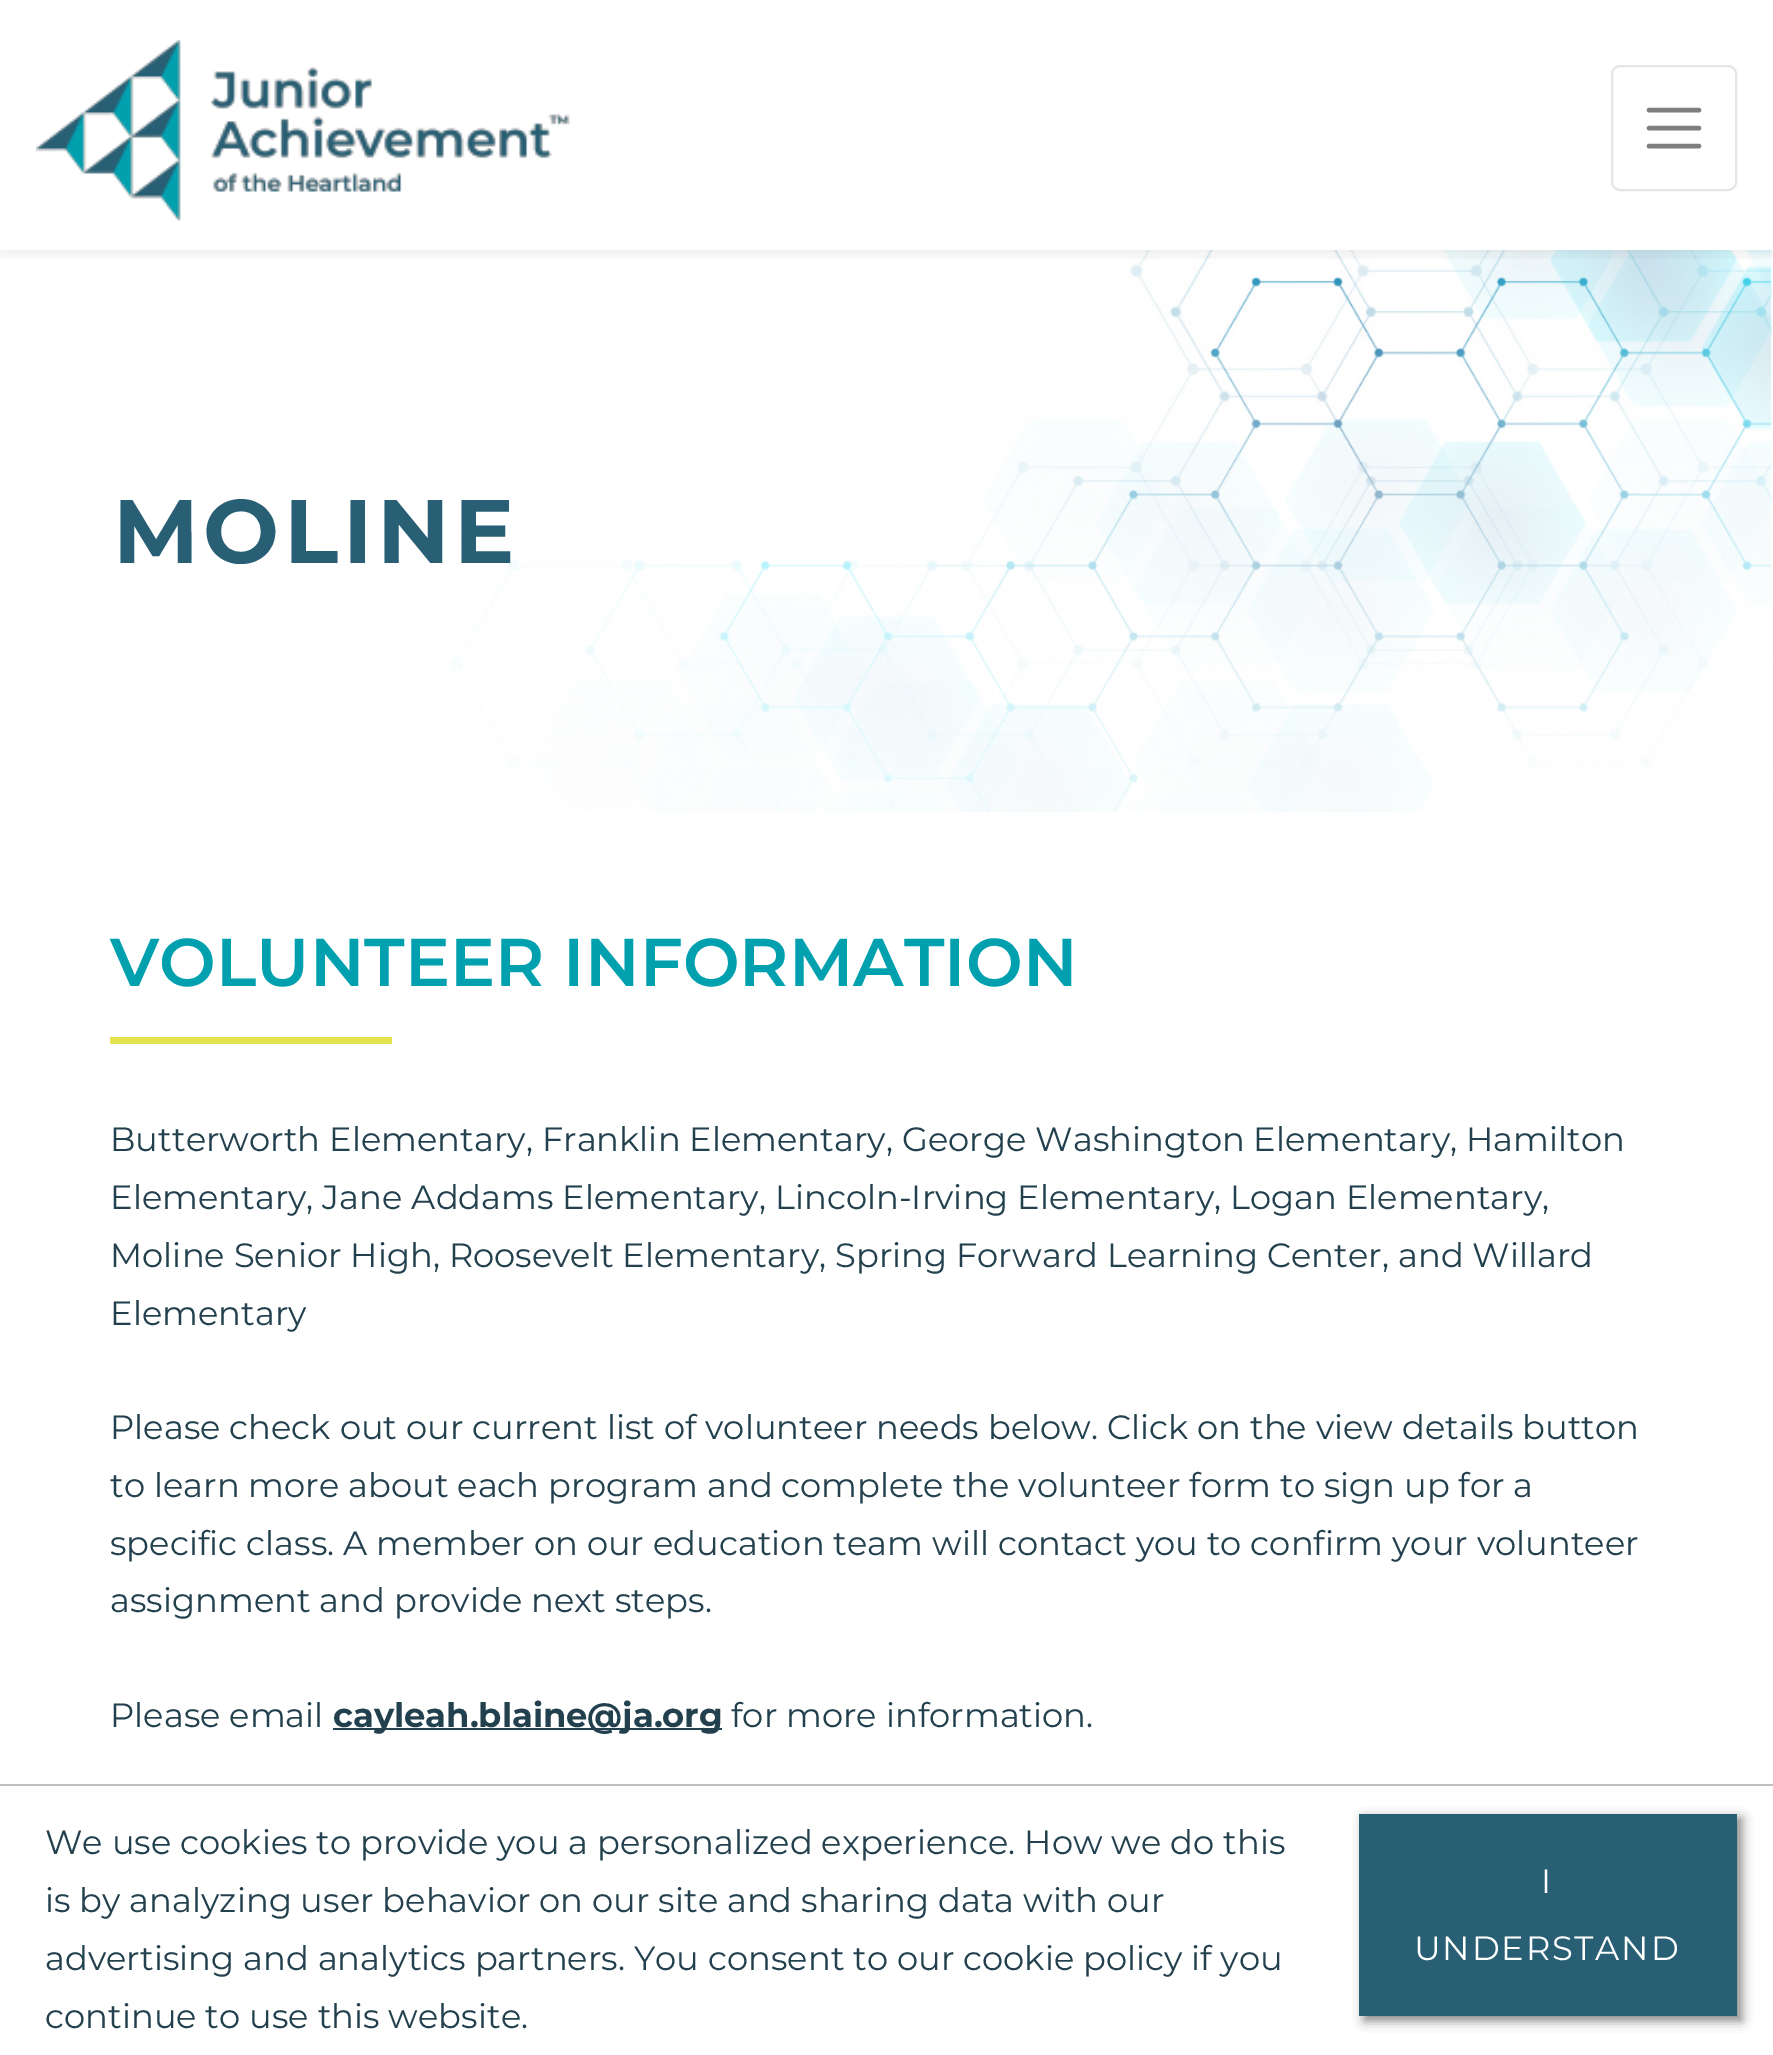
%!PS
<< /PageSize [1773 2055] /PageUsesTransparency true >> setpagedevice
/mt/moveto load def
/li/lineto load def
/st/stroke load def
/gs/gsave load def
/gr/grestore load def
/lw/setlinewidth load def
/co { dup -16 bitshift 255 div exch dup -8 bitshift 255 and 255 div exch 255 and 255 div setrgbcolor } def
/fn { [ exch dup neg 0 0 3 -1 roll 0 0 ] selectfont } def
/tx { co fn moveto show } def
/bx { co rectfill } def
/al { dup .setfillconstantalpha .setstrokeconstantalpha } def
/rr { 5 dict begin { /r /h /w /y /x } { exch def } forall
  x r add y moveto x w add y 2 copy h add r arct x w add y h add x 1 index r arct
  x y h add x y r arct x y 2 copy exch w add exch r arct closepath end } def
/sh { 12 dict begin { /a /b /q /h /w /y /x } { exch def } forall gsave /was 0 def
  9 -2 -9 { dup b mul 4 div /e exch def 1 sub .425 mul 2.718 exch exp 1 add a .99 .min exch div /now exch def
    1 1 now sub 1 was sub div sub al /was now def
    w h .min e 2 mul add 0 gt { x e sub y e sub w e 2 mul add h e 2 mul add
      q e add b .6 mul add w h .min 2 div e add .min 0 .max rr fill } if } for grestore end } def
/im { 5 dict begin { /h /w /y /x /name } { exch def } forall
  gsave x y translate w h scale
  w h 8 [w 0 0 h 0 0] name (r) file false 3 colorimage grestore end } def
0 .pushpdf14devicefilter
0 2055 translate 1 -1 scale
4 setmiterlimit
0 0 1773 2055 16#FFFFFF bx
(media/2.raw) 451 249 1321 564 im
gs
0 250 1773 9 rectclip
16#000000 co
0 0 1773 250 0 11 .1 sh
gr
0.85 al
15 249 1757 1 16#FFFFFF bx
1 al
(media/1.raw) 36 40 534 181 im
16#E5E5E5 co
2 lw
1612 66 124 124 8 rr st
16#7F7F7F co
4.5 lw
1 setlinecap
1649 110 mt 1699 110 li 1649 128 mt 1699 128 li 1649 146 mt 1699 146 li st
110 1037 282 7 16#E3E24F bx
333 1728 389 2 16#22404D bx
0 1784 1773 2 16#C0C0C0 bx
16#888888 co
1364 1818 378 203 0 5.5 1 sh
1359 1814 378 202 16#285F74 bx
/Montserrat-Bold 90 fn
113 563 mt 4.5 0 (MOLINE) ashow
(VOLUNTEER INFORMATION) 110 986 /Montserrat-SemiBold 67.5 16#00A0AF tx
(Butterworth Elementary, Franklin Elementary, George Washington Elementary, Hamilton) 110 1151 /Montserrat-Regular 33.75 16#22404D tx
(Elementary, Jane Addams Elementary, Lincoln-Irving Elementary, Logan Elementary,) 110 1209 /Montserrat-Regular 33.75 16#22404D tx
(Moline Senior High, Roosevelt Elementary, Spring Forward Learning Center, and Willard) 110 1267 /Montserrat-Regular 33.75 16#22404D tx
(Elementary) 110 1325 /Montserrat-Regular 33.75 16#22404D tx
(Please check out our current list of volunteer needs below. Click on the view details button) 110 1439 /Montserrat-Regular 33.75 16#22404D tx
(to learn more about each program and complete the volunteer form to sign up for a) 110 1497 /Montserrat-Regular 33.75 16#22404D tx
(specific class. A member on our education team will contact you to confirm your volunteer) 110 1555 /Montserrat-Regular 33.75 16#22404D tx
(assignment and provide next steps.) 110 1612 /Montserrat-Regular 33.75 16#22404D tx
(Please email) 110 1727 /Montserrat-Regular 33.75 16#22404D tx
(cayleah.blaine@ja.org) 333 1727 /Montserrat-Bold 33.75 16#22404D tx
(for more information.) 731 1727 /Montserrat-Regular 33.75 16#22404D tx
(We use cookies to provide you a personalized experience. How we do this) 45 1854 /Montserrat-Regular 33.75 16#22404D tx
(is by analyzing user behavior on our site and sharing data with our) 45 1912 /Montserrat-Regular 33.75 16#22404D tx
(advertising and analytics partners. You consent to our cookie policy if you) 45 1970 /Montserrat-Regular 33.75 16#22404D tx
(continue to use this website.) 45 2028 /Montserrat-Regular 33.75 16#22404D tx
16#FFFFFF co
1541 1893 mt 1.75 0 (I) ashow
1414 1960 mt 1.75 0 (UNDERSTAND) ashow
.poppdf14devicefilter showpage
